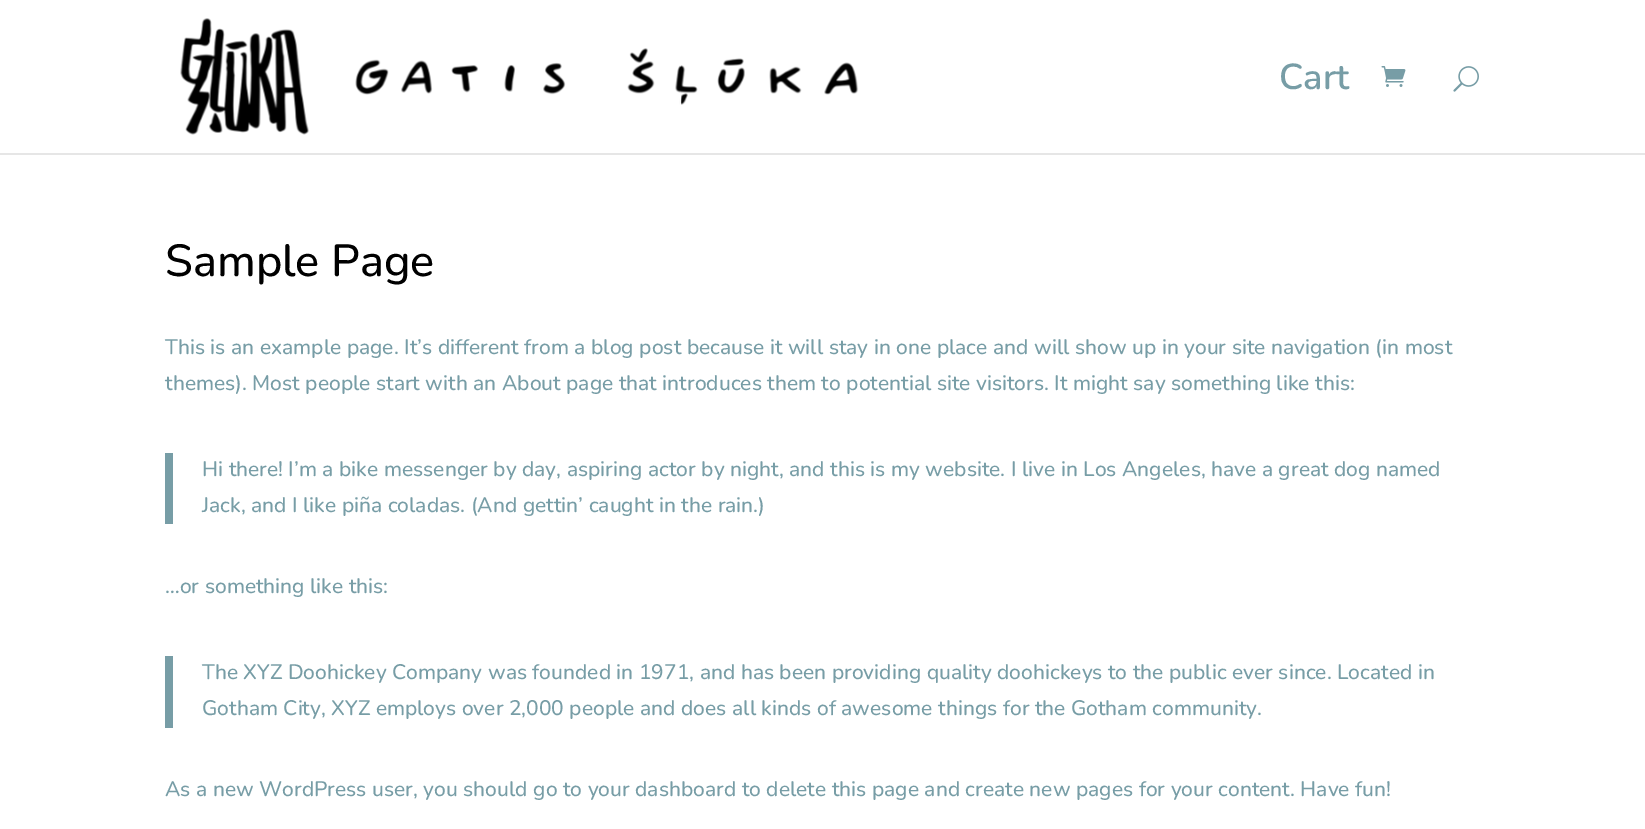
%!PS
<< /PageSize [1645 829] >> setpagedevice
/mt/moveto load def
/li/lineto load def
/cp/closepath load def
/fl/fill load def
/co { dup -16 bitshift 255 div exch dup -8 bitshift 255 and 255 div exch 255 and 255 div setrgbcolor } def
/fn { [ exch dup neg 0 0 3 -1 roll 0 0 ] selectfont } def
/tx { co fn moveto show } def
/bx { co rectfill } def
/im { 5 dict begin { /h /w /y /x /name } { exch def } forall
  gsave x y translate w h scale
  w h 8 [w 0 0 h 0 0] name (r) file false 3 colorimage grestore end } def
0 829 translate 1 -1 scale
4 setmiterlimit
0 0 1645 829 16#FFFFFF bx
16#E6E6E6 co
0 153 mt 0 155 li 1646 155 li 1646 2 li 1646 153 li cp fl
(media/1.raw) 180 18 679 117 im
(media/2.raw) 1381 66 25 21 im
(media/3.raw) 1453 66 26 26 im
165 453 8 71 16#779DA6 bx
165 656 8 72 16#779DA6 bx
(Cart) 1279 89 /Nunito-SemiBold 36 16#779DA6 tx
(Sample Page) 165 276 /Nunito-Medium 45 16#000000 tx
(This is an example page. It’s different from a blog post because it will stay in one place and will show up in your site navigation \(in most) 165 354 /Nunito-Medium 21 16#779DA6 tx
(themes\). Most people start with an About page that introduces them to potential site visitors. It might say something like this:) 165 390 /Nunito-Medium 21 16#779DA6 tx
(Hi there! I’m a bike messenger by day, aspiring actor by night, and this is my website. I live in Los Angeles, have a great dog named) 202 476 /Nunito-Medium 21 16#779DA6 tx
(Jack, and I like piña coladas. \(And gettin’ caught in the rain.\)) 202 512 /Nunito-Medium 21 16#779DA6 tx
(…or something like this:) 165 593 /Nunito-Medium 21 16#779DA6 tx
(The XYZ Doohickey Company was founded in 1971, and has been providing quality doohickeys to the public ever since. Located in) 202 679 /Nunito-Medium 21 16#779DA6 tx
(Gotham City, XYZ employs over 2,000 people and does all kinds of awesome things for the Gotham community.) 202 715 /Nunito-Medium 21 16#779DA6 tx
(As a new WordPress user, you should go to your dashboard to delete this page and create new pages for your content. Have fun!) 165 796 /Nunito-Medium 21 16#779DA6 tx
showpage
